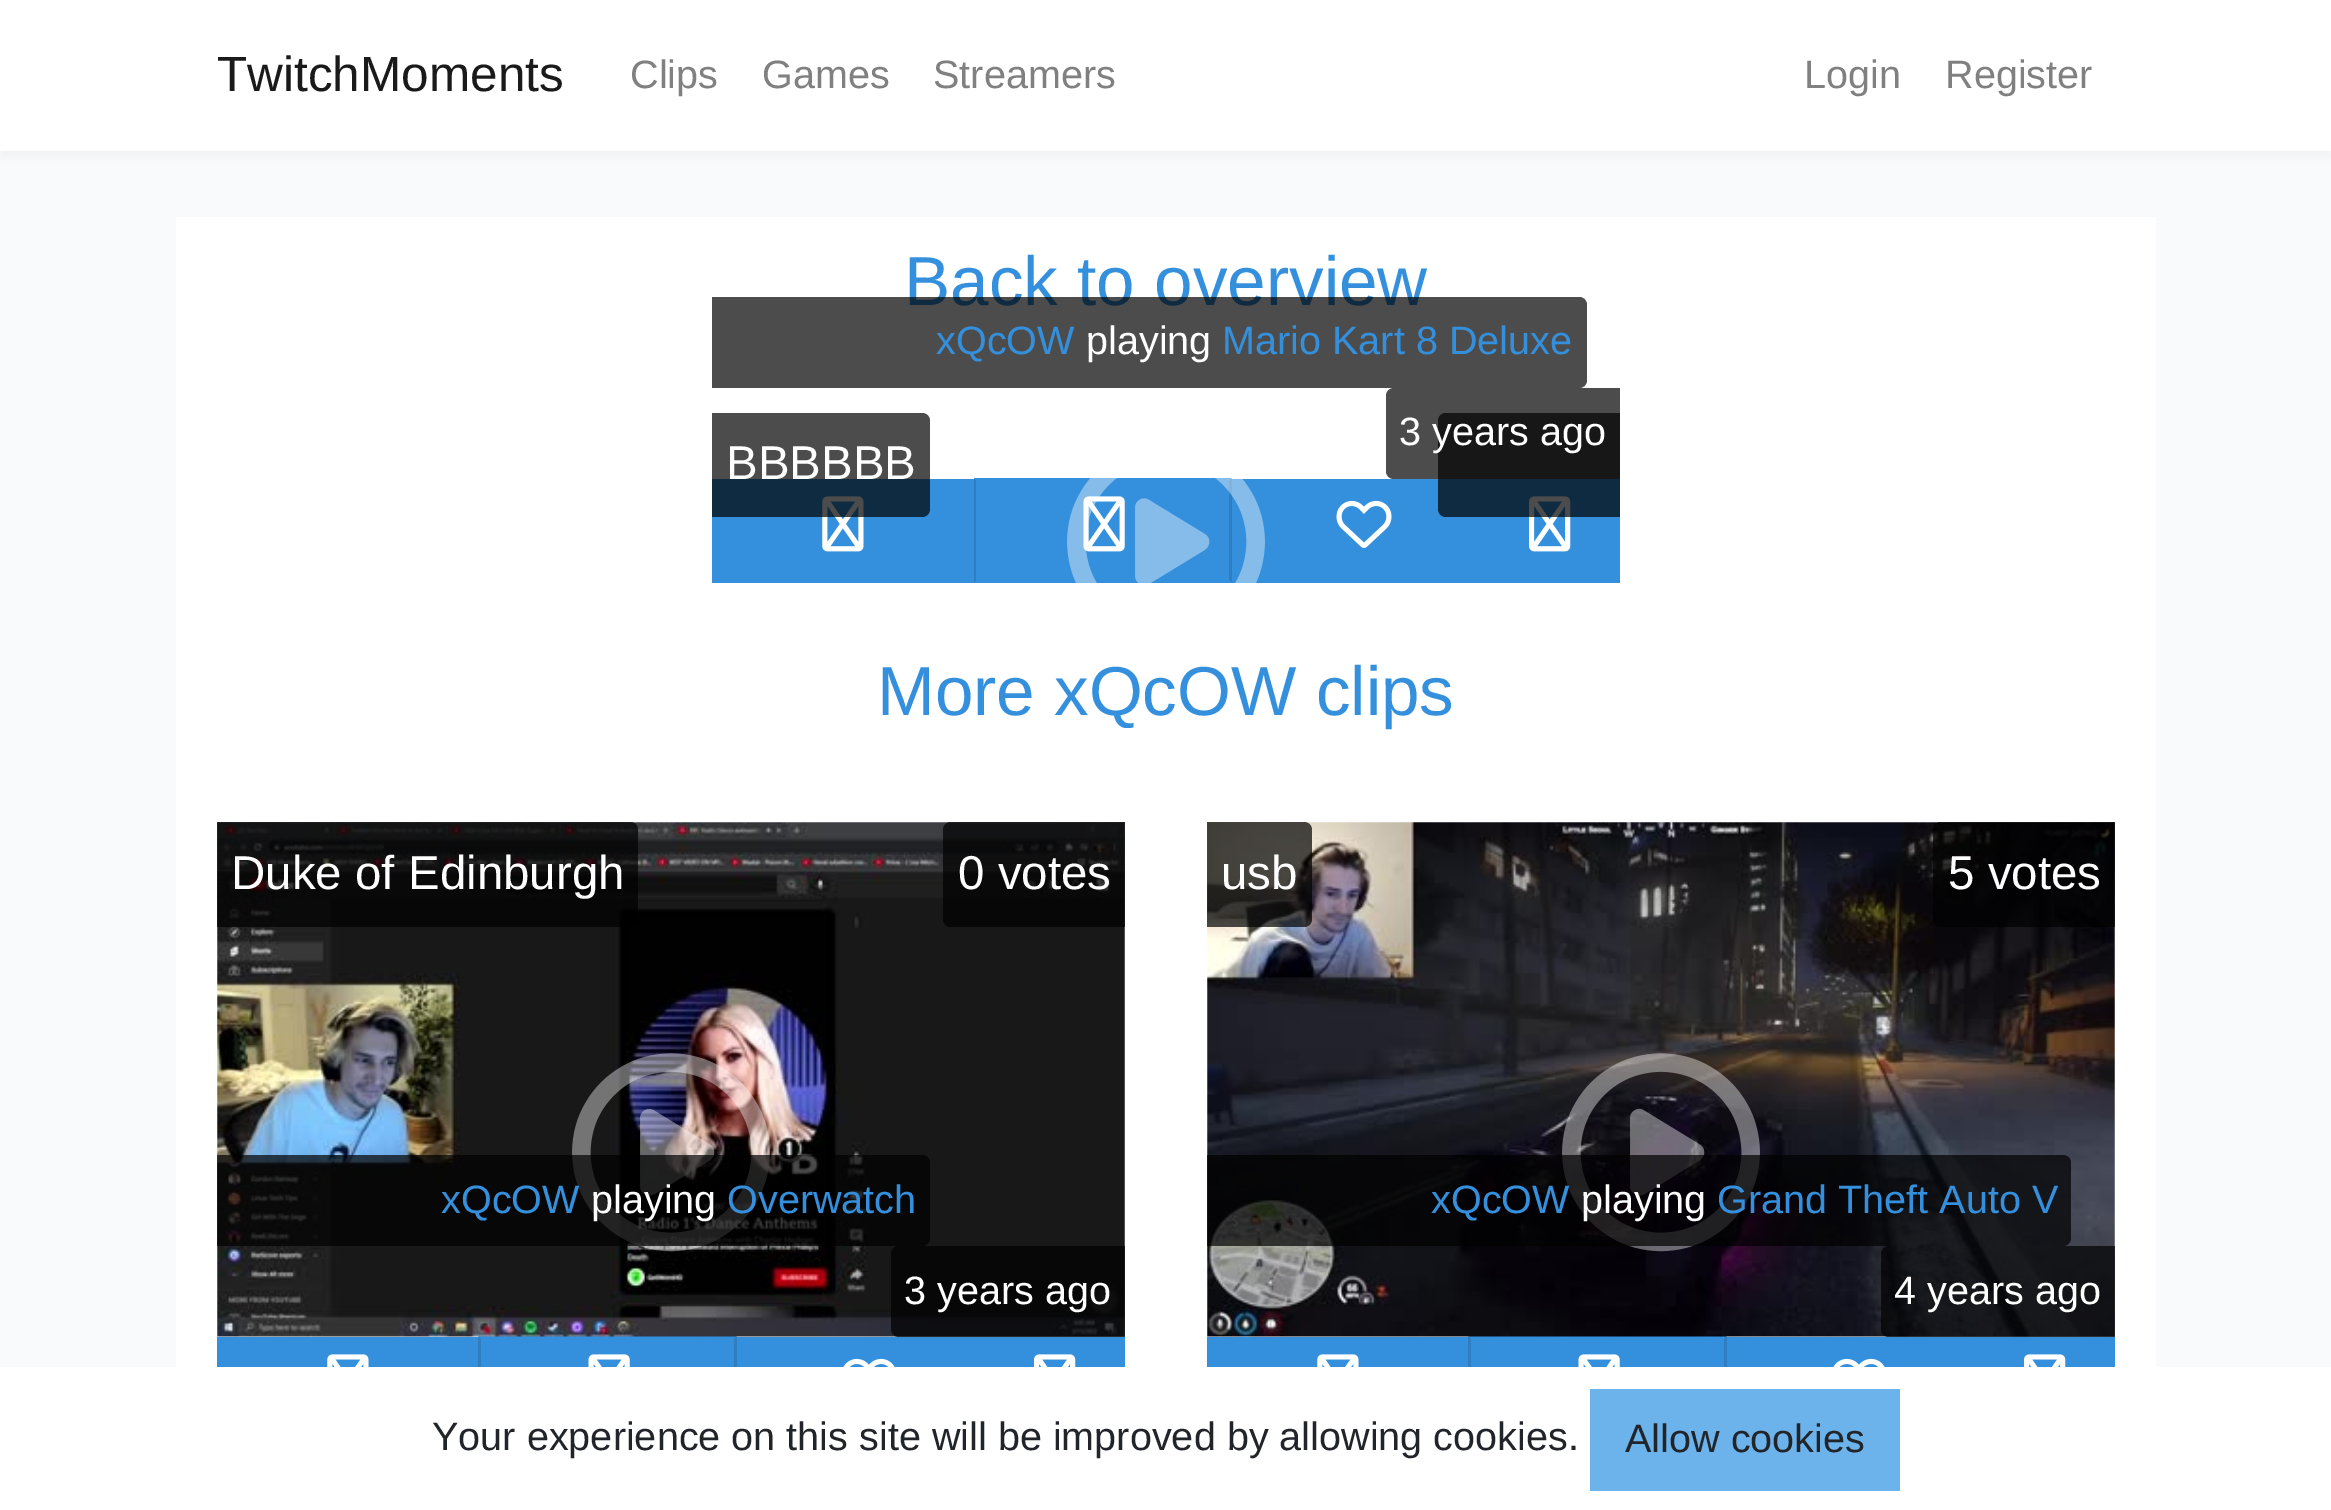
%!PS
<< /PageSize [2331 1510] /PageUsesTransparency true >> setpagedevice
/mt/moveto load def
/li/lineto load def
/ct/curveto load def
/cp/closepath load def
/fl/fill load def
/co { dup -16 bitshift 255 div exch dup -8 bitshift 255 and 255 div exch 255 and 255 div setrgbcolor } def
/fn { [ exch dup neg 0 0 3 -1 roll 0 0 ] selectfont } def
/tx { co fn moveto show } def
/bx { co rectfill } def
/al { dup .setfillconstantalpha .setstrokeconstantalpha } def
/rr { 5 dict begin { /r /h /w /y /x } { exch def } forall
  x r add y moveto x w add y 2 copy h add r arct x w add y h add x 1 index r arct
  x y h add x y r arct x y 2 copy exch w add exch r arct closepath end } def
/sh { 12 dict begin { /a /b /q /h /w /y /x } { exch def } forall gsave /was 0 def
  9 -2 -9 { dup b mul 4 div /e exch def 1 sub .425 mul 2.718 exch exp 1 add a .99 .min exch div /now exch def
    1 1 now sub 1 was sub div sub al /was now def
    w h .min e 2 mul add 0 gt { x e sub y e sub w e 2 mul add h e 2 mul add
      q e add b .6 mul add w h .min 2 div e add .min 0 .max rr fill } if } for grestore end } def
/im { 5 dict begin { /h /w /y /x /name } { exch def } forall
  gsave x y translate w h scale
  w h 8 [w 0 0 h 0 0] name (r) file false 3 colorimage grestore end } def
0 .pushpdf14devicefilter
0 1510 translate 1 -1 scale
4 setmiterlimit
0 0 2331 1510 16#F8FAFC bx
16#000000 co
0 6 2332 151 0 5.5 .04 sh
0 0 2331 151 16#FFFFFF bx
176 217 1980 1150 16#FFFFFF bx
712 479 908 104 16#3490DC bx
(media/5.raw) 1529 496 42 56 im
0.7 al
16#000000 co
1446 413 mt 1620 413 li 1620 517 li 1446 517 li 1441.5 517 1438 513.5 1438 509 ct 1438 421 li 1438 416.5 1441.5 413 1446 413 ct cp fl
1394 388 mt 1620 388 li 1620 479 li 1394 479 li 1389.5 479 1386 475.5 1386 471 ct 1386 396 li 1386 391.5 1389.5 388 1394 388 ct cp fl
1 al
(media/3.raw) 822 496 42 56 im
0.7 al
712 413 mt 922 413 li 926.5 413 930 416.5 930 421 ct 930 509 li 930 513.5 926.5 517 922 517 ct 712 517 li cp fl
1 al
16#3490DC co
974 478 mt 1232 478 li 1229 481 li 976 481 li cp fl
0.12 al
16#000000 co
1232 478 mt 1232 583 li 1229 580 li 1229 481 li cp fl
1 al
16#3490DC co
1232 583 mt 974 583 li 976 580 li 1229 580 li cp fl
(media/2.raw) 1083 496 42 56 im
(media/1.raw) 1067 478 198 105 im
16#2E7EC1 co
974 583 mt 974 478 li 976 481 li 976 580 li cp fl
(media/4.raw) 1336 500 56 48 im
217 1337 908 30 16#3490DC bx
478 1336 mt 737 1336 li 734 1339 li 481 1339 li cp fl
0.12 al
16#000000 co
737 1336 mt 737 1441 li 734 1438 li 734 1339 li cp fl
478 1441 mt 478 1336 li 481 1339 li 481 1438 li cp fl
1 al
(media/6.raw) 217 822 908 515 im
0.7 al
217 822 mt 630 822 li 634.5 822 638 825.5 638 830 ct 638 919 li 638 923.5 634.5 927 630 927 ct 217 927 li cp fl
951 822 mt 1125 822 li 1125 927 li 951 927 li 946.5 927 943 923.5 943 919 ct 943 830 li 943 825.5 946.5 822 951 822 ct cp fl
1 al
(media/7.raw) 572 1053 198 199 im
0.7 al
217 1155 mt 922 1155 li 926.5 1155 930 1158.5 930 1163 ct 930 1238 li 930 1242.5 926.5 1246 922 1246 ct 217 1246 li cp fl
899 1246 mt 1125 1246 li 1125 1337 li 899 1337 li 894.5 1337 891 1333.5 891 1329 ct 891 1254 li 891 1249.5 894.5 1246 899 1246 ct cp fl
1 al
(media/8.raw) 588 1354 42 13 im
(media/9.raw) 327 1354 42 13 im
(media/10.raw) 843 1358 52 9 im
(media/11.raw) 1034 1354 42 13 im
1207 1337 908 30 16#3490DC bx
1468 1336 mt 1727 1336 li 1724 1339 li 1471 1339 li cp fl
0.12 al
16#000000 co
1727 1336 mt 1727 1441 li 1724 1438 li 1724 1339 li cp fl
1468 1441 mt 1468 1336 li 1471 1339 li 1471 1438 li cp fl
1 al
(media/12.raw) 1207 822 908 515 im
0.7 al
1207 822 mt 1304 822 li 1308.5 822 1312 825.5 1312 830 ct 1312 919 li 1312 923.5 1308.5 927 1304 927 ct 1207 927 li cp fl
1941 822 mt 2115 822 li 2115 927 li 1941 927 li 1936.5 927 1933 923.5 1933 919 ct 1933 830 li 1933 825.5 1936.5 822 1941 822 ct cp fl
1 al
(media/13.raw) 1562 1053 198 199 im
0.7 al
1207 1155 mt 2063 1155 li 2067.5 1155 2071 1158.5 2071 1163 ct 2071 1238 li 2071 1242.5 2067.5 1246 2063 1246 ct 1207 1246 li cp fl
1889 1246 mt 2115 1246 li 2115 1337 li 1889 1337 li 1884.5 1337 1881 1333.5 1881 1329 ct 1881 1254 li 1881 1249.5 1884.5 1246 1889 1246 ct cp fl
1 al
(media/8.raw) 1578 1354 42 13 im
(media/9.raw) 1317 1354 42 13 im
(media/10.raw) 1833 1358 52 9 im
(media/11.raw) 2024 1354 42 13 im
0 1367 2331 143 16#FFFFFF bx
1590 1389 310 102 16#6CB2EB bx
(TwitchMoments) 217 91 /LiberationSans-Regular 49.5 16#1A1A1A tx
(Clips) 630 88 /LiberationSans-Regular 39.6 16#808080 tx
(Games) 762 88 /LiberationSans-Regular 39.6 16#808080 tx
(Streamers) 933 88 /LiberationSans-Regular 39.6 16#808080 tx
(Login) 1804 88 /LiberationSans-Regular 39.6 16#808080 tx
(Register) 1945 88 /LiberationSans-Regular 39.6 16#808080 tx
(Back to overview) 904 305 /LiberationSans-Regular 69.25 16#3490DC tx
0.7 al
16#000000 co
712 297 mt 1579 297 li 1583.5 297 1587 300.5 1587 305 ct 1587 380 li 1587 384.5 1583.5 388 1579 388 ct 712 388 li cp fl
1 al
(xQcOW) 936 354 /LiberationSans-Regular 39.6 16#3490DC tx
(playing) 1086 354 /LiberationSans-Regular 39.6 16#FFFFFF tx
(Mario Kart 8 Deluxe) 1222 354 /LiberationSans-Regular 39.6 16#3490DC tx
(3 years ago) 1399 445 /LiberationSans-Regular 39.6 16#FFFFFF tx
(BBBBBB) 726 479 /LiberationSans-Regular 47.5 16#FFFFFF tx
(More xQcOW clips) 877 715 /LiberationSans-Regular 69.25 16#3490DC tx
(Duke of Edinburgh) 231 889 /LiberationSans-Regular 47.5 16#FFFFFF tx
(0 votes) 958 889 /LiberationSans-Regular 47.5 16#FFFFFF tx
(xQcOW) 441 1213 /LiberationSans-Regular 39.6 16#3490DC tx
(playing) 591 1213 /LiberationSans-Regular 39.6 16#FFFFFF tx
(Overwatch) 727 1213 /LiberationSans-Regular 39.6 16#3490DC tx
(3 years ago) 904 1304 /LiberationSans-Regular 39.6 16#FFFFFF tx
(usb) 1221 889 /LiberationSans-Regular 47.5 16#FFFFFF tx
(5 votes) 1948 889 /LiberationSans-Regular 47.5 16#FFFFFF tx
(xQcOW) 1431 1213 /LiberationSans-Regular 39.6 16#3490DC tx
(playing) 1581 1213 /LiberationSans-Regular 39.6 16#FFFFFF tx
(Grand Theft Auto V) 1717 1213 /LiberationSans-Regular 39.6 16#3490DC tx
(4 years ago) 1894 1304 /LiberationSans-Regular 39.6 16#FFFFFF tx
(Your experience on this site will be improved by allowing cookies.) 432 1450 /LiberationSans-Regular 39.6 16#212529 tx
(Allow cookies) 1625 1452 /LiberationSans-Regular 39.6 16#212529 tx
.poppdf14devicefilter showpage
